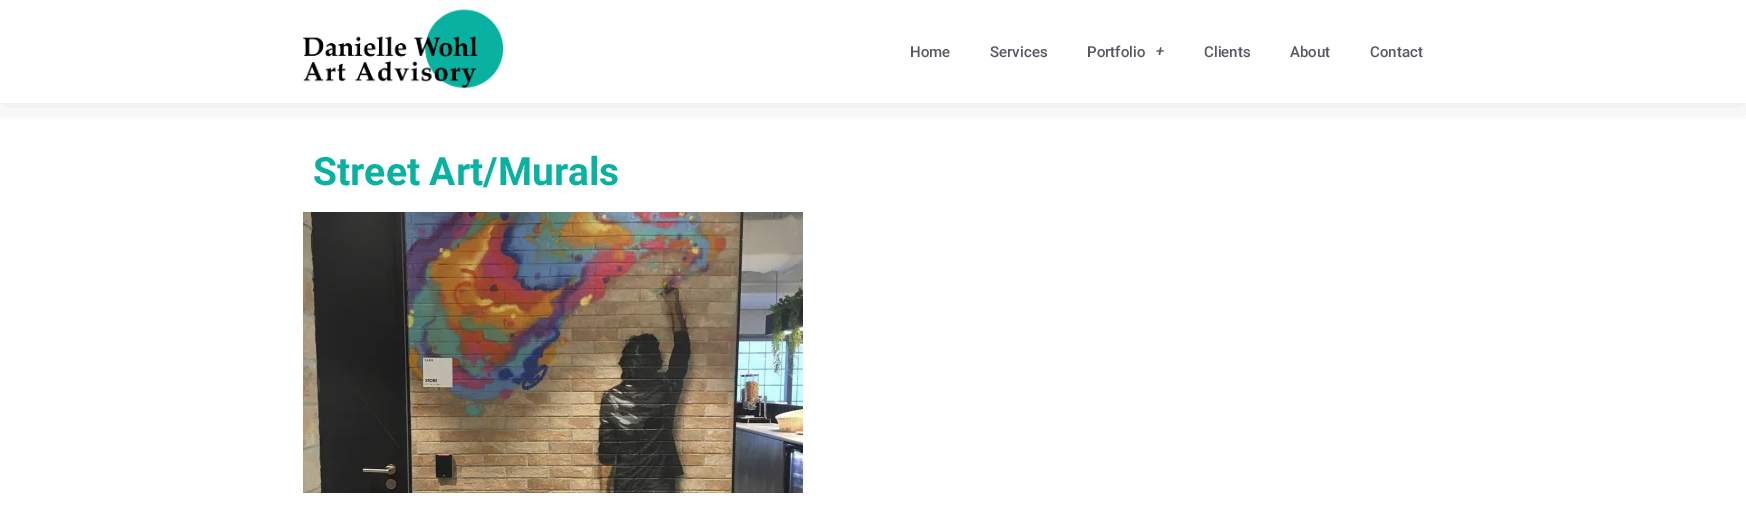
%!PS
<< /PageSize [1746 518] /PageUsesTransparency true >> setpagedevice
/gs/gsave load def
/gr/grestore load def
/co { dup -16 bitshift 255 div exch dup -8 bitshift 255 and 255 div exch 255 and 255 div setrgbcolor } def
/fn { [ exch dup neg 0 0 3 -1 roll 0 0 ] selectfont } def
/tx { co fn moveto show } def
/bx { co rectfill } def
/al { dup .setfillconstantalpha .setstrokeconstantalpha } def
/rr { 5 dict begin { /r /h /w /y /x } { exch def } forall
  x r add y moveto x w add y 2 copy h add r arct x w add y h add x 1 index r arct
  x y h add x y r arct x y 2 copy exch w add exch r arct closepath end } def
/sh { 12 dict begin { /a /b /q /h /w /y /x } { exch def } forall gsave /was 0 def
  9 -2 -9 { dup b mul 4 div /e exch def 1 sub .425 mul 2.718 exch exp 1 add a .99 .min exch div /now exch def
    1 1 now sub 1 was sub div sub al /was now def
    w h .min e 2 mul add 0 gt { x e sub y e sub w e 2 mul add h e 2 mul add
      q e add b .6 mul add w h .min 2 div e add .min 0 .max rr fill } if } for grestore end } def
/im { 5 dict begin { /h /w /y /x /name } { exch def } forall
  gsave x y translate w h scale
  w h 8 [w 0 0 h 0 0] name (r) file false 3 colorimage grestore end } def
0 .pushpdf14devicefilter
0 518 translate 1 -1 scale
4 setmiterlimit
0 0 1746 518 16#FFFFFF bx
gs
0 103 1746 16 rectclip
16#000000 co
0 0 1746 103 0 19 .1 sh
gr
(media/1.raw) 303 9 200 80 im
(media/2.raw) 303 212 500 281 im
(Home) 910 57 /Roboto-Medium 15 16#54595F tx
(Services) 990 57 /Roboto-Medium 15 16#54595F tx
(Portfolio) 1087 57 /Roboto-Medium 15 16#54595F tx
(+) 1156 56 /Roboto-MediumItalic 15 16#54595F tx
(Clients) 1204 57 /Roboto-Medium 15 16#54595F tx
(About) 1290 57 /Roboto-Medium 15 16#54595F tx
(Contact) 1370 57 /Roboto-Medium 15 16#54595F tx
(Street Art/Murals) 313 185 /Roboto-Bold 39 16#09B1A0 tx
.poppdf14devicefilter showpage
